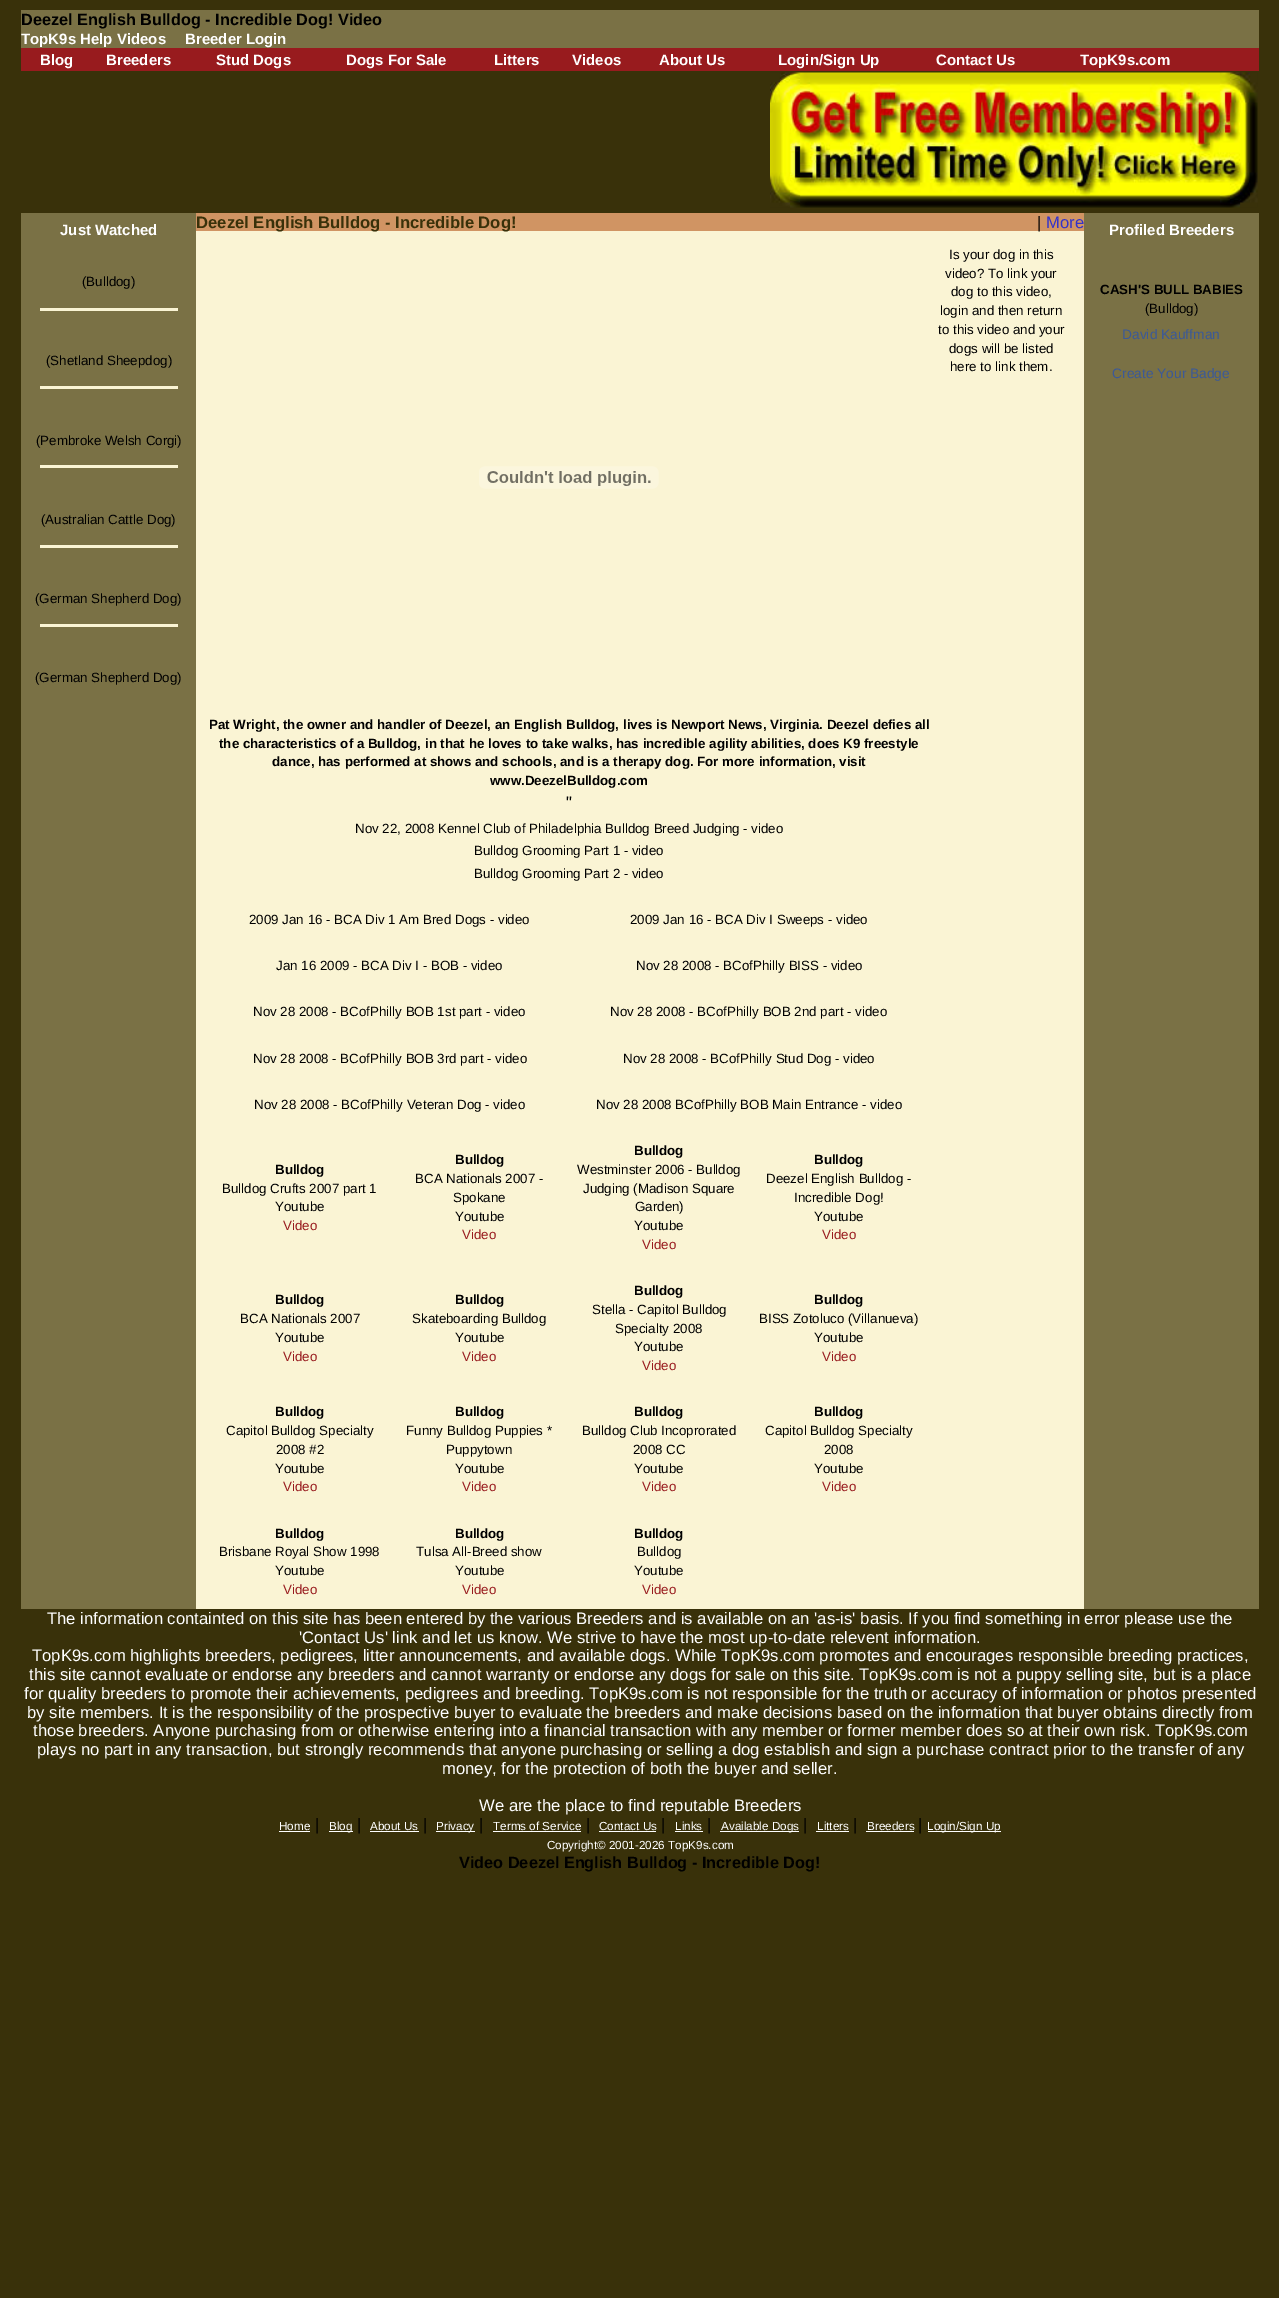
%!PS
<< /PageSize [1279 2298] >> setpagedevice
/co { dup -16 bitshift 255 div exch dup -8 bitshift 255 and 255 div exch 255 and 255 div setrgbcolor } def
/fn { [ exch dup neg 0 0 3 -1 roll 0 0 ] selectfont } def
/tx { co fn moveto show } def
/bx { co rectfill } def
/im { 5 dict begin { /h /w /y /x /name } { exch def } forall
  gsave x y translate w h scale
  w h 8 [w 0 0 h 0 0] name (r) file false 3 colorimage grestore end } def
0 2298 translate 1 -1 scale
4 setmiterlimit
0 0 1279 2298 16#39310A bx
21 10 1238 38 16#7A7145 bx
21 48 1238 23 16#981B1E bx
(media/1.raw) 770 72 488 136 im
21 213 175 1396 16#7A7145 bx
40 308 138 3 16#FAF4D4 bx
40 386 138 3 16#FAF4D4 bx
40 465 138 3 16#FAF4D4 bx
40 545 138 3 16#FAF4D4 bx
40 624 138 3 16#FAF4D4 bx
196 213 888 18 16#D09463 bx
196 231 888 1378 16#FAF4D4 bx
(media/2.raw) 479 466 180 23 im
1084 213 175 1396 16#7A7145 bx
279 1831 31 1 16#FFFFFF bx
329 1831 24 1 16#FFFFFF bx
370 1831 49 1 16#FFFFFF bx
436 1831 39 1 16#FFFFFF bx
493 1831 88 1 16#FFFFFF bx
599 1831 57 1 16#FFFFFF bx
675 1831 28 1 16#FFFFFF bx
720 1831 79 1 16#FFFFFF bx
816 1831 33 1 16#FFFFFF bx
866 1831 48 1 16#FFFFFF bx
928 1831 73 1 16#FFFFFF bx
(Deezel English Bulldog - Incredible Dog! Video) 21 25 /LiberationSans-Bold 16.25 16#000000 tx
(TopK9s Help Videos) 21 44 /LiberationSans-Bold 15 16#FFFFFF tx
(Breeder Login) 185 44 /LiberationSans-Bold 15 16#FFFFFF tx
(Blog) 40 65 /LiberationSans-Bold 15 16#FFFFFF tx
(Breeders) 106 65 /LiberationSans-Bold 15 16#FFFFFF tx
(Stud Dogs) 216 65 /LiberationSans-Bold 15 16#FFFFFF tx
(Dogs For Sale) 346 65 /LiberationSans-Bold 15 16#FFFFFF tx
(Litters) 494 65 /LiberationSans-Bold 15 16#FFFFFF tx
(Videos) 572 65 /LiberationSans-Bold 15 16#FFFFFF tx
(About Us) 659 65 /LiberationSans-Bold 15 16#FFFFFF tx
(Login/Sign Up) 778 65 /LiberationSans-Bold 15 16#FFFFFF tx
(Contact Us) 936 65 /LiberationSans-Bold 15 16#FFFFFF tx
(TopK9s.com) 1080 65 /LiberationSans-Bold 15 16#FFFFFF tx
(Just Watched) 60 235 /LiberationSans-Bold 15 16#FFFFFF tx
(\(Bulldog\)) 82 286 /LiberationSans-Regular 13.33 16#000000 tx
(\(Shetland Sheepdog\)) 46 365 /LiberationSans-Regular 13.33 16#000000 tx
(\(Pembroke Welsh Corgi\)) 36 445 /LiberationSans-Regular 13.33 16#000000 tx
(\(Australian Cattle Dog\)) 41 524 /LiberationSans-Regular 13.33 16#000000 tx
(\(German Shepherd Dog\)) 35 603 /LiberationSans-Regular 13.33 16#000000 tx
(\(German Shepherd Dog\)) 35 682 /LiberationSans-Regular 13.33 16#000000 tx
(Deezel English Bulldog - Incredible Dog!) 196 228 /LiberationSans-Bold 16.67 16#39310A tx
(|) 1037 228 /LiberationSans-Regular 16.67 16#000000 tx
(More) 1046 228 /LiberationSans-Regular 16.67 16#3333CC tx
(Is your dog in this) 949 259 /LiberationSans-Regular 13.33 16#000000 tx
(video? To link your) 945 278 /LiberationSans-Regular 13.33 16#000000 tx
(dog to this video,) 951 296 /LiberationSans-Regular 13.33 16#000000 tx
(login and then return) 940 315 /LiberationSans-Regular 13.33 16#000000 tx
(to this video and your) 938 334 /LiberationSans-Regular 13.33 16#000000 tx
(dogs will be listed) 949 353 /LiberationSans-Regular 13.33 16#000000 tx
(here to link them.) 950 371 /LiberationSans-Regular 13.33 16#000000 tx
(Pat Wright, the owner and handler of Deezel, an English Bulldog, lives is Newport News, Virginia. Deezel defies all) 209 729 /LiberationSans-Bold 13.33 16#000000 tx
(the characteristics of a Bulldog, in that he loves to take walks, has incredible agility abilities, does K9 freestyle) 219 748 /LiberationSans-Bold 13.33 16#000000 tx
(dance, has performed at shows and schools, and is a therapy dog. For more information, visit) 272 766 /LiberationSans-Bold 13.33 16#000000 tx
(www.DeezelBulldog.com) 490 785 /LiberationSans-Bold 13.33 16#000000 tx
(") 566 808 /LiberationSans-Regular 16.67 16#000000 tx
(Nov 22, 2008 Kennel Club of Philadelphia Bulldog Breed Judging - video) 355 833 /LiberationSans-Regular 13.33 16#000000 tx
(Bulldog Grooming Part 1 - video) 474 855 /LiberationSans-Regular 13.33 16#000000 tx
(Bulldog Grooming Part 2 - video) 474 878 /LiberationSans-Regular 13.33 16#000000 tx
(2009 Jan 16 - BCA Div 1 Am Bred Dogs - video) 249 924 /LiberationSans-Regular 13.33 16#000000 tx
(2009 Jan 16 - BCA Div I Sweeps - video) 630 924 /LiberationSans-Regular 13.33 16#000000 tx
(Jan 16 2009 - BCA Div I - BOB - video) 276 970 /LiberationSans-Regular 13.33 16#000000 tx
(Nov 28 2008 - BCofPhilly BISS - video) 636 970 /LiberationSans-Regular 13.33 16#000000 tx
(Nov 28 2008 - BCofPhilly BOB 1st part - video) 253 1016 /LiberationSans-Regular 13.33 16#000000 tx
(Nov 28 2008 - BCofPhilly BOB 2nd part - video) 610 1016 /LiberationSans-Regular 13.33 16#000000 tx
(Nov 28 2008 - BCofPhilly BOB 3rd part - video) 253 1063 /LiberationSans-Regular 13.33 16#000000 tx
(Nov 28 2008 - BCofPhilly Stud Dog - video) 623 1063 /LiberationSans-Regular 13.33 16#000000 tx
(Nov 28 2008 - BCofPhilly Veteran Dog - video) 254 1109 /LiberationSans-Regular 13.33 16#000000 tx
(Nov 28 2008 BCofPhilly BOB Main Entrance - video) 596 1109 /LiberationSans-Regular 13.33 16#000000 tx
(Bulldog) 275 1174 /LiberationSans-Bold 13.33 16#000000 tx
(Bulldog Crufts 2007 part 1) 222 1193 /LiberationSans-Regular 13.33 16#000000 tx
(Youtube) 275 1211 /LiberationSans-Regular 13.33 16#000000 tx
(Video) 283 1230 /LiberationSans-Regular 13.33 16#981B1E tx
(Bulldog) 455 1164 /LiberationSans-Bold 13.33 16#000000 tx
(BCA Nationals 2007 -) 415 1183 /LiberationSans-Regular 13.33 16#000000 tx
(Spokane) 453 1202 /LiberationSans-Regular 13.33 16#000000 tx
(Youtube) 455 1221 /LiberationSans-Regular 13.33 16#000000 tx
(Video) 462 1239 /LiberationSans-Regular 13.33 16#981B1E tx
(Bulldog) 634 1155 /LiberationSans-Bold 13.33 16#000000 tx
(Westminster 2006 - Bulldog) 577 1174 /LiberationSans-Regular 13.33 16#000000 tx
(Judging \(Madison Square) 583 1193 /LiberationSans-Regular 13.33 16#000000 tx
(Garden\)) 635 1211 /LiberationSans-Regular 13.33 16#000000 tx
(Youtube) 634 1230 /LiberationSans-Regular 13.33 16#000000 tx
(Video) 642 1249 /LiberationSans-Regular 13.33 16#981B1E tx
(Bulldog) 814 1164 /LiberationSans-Bold 13.33 16#000000 tx
(Deezel English Bulldog -) 766 1183 /LiberationSans-Regular 13.33 16#000000 tx
(Incredible Dog!) 794 1202 /LiberationSans-Regular 13.33 16#000000 tx
(Youtube) 814 1221 /LiberationSans-Regular 13.33 16#000000 tx
(Video) 822 1239 /LiberationSans-Regular 13.33 16#981B1E tx
(Bulldog) 275 1304 /LiberationSans-Bold 13.33 16#000000 tx
(BCA Nationals 2007) 240 1323 /LiberationSans-Regular 13.33 16#000000 tx
(Youtube) 275 1342 /LiberationSans-Regular 13.33 16#000000 tx
(Video) 283 1361 /LiberationSans-Regular 13.33 16#981B1E tx
(Bulldog) 455 1304 /LiberationSans-Bold 13.33 16#000000 tx
(Skateboarding Bulldog) 412 1323 /LiberationSans-Regular 13.33 16#000000 tx
(Youtube) 455 1342 /LiberationSans-Regular 13.33 16#000000 tx
(Video) 462 1361 /LiberationSans-Regular 13.33 16#981B1E tx
(Bulldog) 634 1295 /LiberationSans-Bold 13.33 16#000000 tx
(Stella - Capitol Bulldog) 592 1314 /LiberationSans-Regular 13.33 16#000000 tx
(Specialty 2008) 615 1333 /LiberationSans-Regular 13.33 16#000000 tx
(Youtube) 634 1351 /LiberationSans-Regular 13.33 16#000000 tx
(Video) 642 1370 /LiberationSans-Regular 13.33 16#981B1E tx
(Bulldog) 814 1304 /LiberationSans-Bold 13.33 16#000000 tx
(BISS Zotoluco \(Villanueva\)) 759 1323 /LiberationSans-Regular 13.33 16#000000 tx
(Youtube) 814 1342 /LiberationSans-Regular 13.33 16#000000 tx
(Video) 822 1361 /LiberationSans-Regular 13.33 16#981B1E tx
(Bulldog) 275 1416 /LiberationSans-Bold 13.33 16#000000 tx
(Capitol Bulldog Specialty) 226 1435 /LiberationSans-Regular 13.33 16#000000 tx
(2008 #2) 276 1454 /LiberationSans-Regular 13.33 16#000000 tx
(Youtube) 275 1473 /LiberationSans-Regular 13.33 16#000000 tx
(Video) 283 1491 /LiberationSans-Regular 13.33 16#981B1E tx
(Bulldog) 455 1416 /LiberationSans-Bold 13.33 16#000000 tx
(Funny Bulldog Puppies *) 406 1435 /LiberationSans-Regular 13.33 16#000000 tx
(Puppytown) 446 1454 /LiberationSans-Regular 13.33 16#000000 tx
(Youtube) 455 1473 /LiberationSans-Regular 13.33 16#000000 tx
(Video) 462 1491 /LiberationSans-Regular 13.33 16#981B1E tx
(Bulldog) 634 1416 /LiberationSans-Bold 13.33 16#000000 tx
(Bulldog Club Incoprorated) 582 1435 /LiberationSans-Regular 13.33 16#000000 tx
(2008 CC) 633 1454 /LiberationSans-Regular 13.33 16#000000 tx
(Youtube) 634 1473 /LiberationSans-Regular 13.33 16#000000 tx
(Video) 642 1491 /LiberationSans-Regular 13.33 16#981B1E tx
(Bulldog) 814 1416 /LiberationSans-Bold 13.33 16#000000 tx
(Capitol Bulldog Specialty) 765 1435 /LiberationSans-Regular 13.33 16#000000 tx
(2008) 824 1454 /LiberationSans-Regular 13.33 16#000000 tx
(Youtube) 814 1473 /LiberationSans-Regular 13.33 16#000000 tx
(Video) 822 1491 /LiberationSans-Regular 13.33 16#981B1E tx
(Bulldog) 275 1538 /LiberationSans-Bold 13.33 16#000000 tx
(Brisbane Royal Show 1998) 219 1556 /LiberationSans-Regular 13.33 16#000000 tx
(Youtube) 275 1575 /LiberationSans-Regular 13.33 16#000000 tx
(Video) 283 1594 /LiberationSans-Regular 13.33 16#981B1E tx
(Bulldog) 455 1538 /LiberationSans-Bold 13.33 16#000000 tx
(Tulsa All-Breed show) 416 1556 /LiberationSans-Regular 13.33 16#000000 tx
(Youtube) 455 1575 /LiberationSans-Regular 13.33 16#000000 tx
(Video) 462 1594 /LiberationSans-Regular 13.33 16#981B1E tx
(Bulldog) 634 1538 /LiberationSans-Bold 13.33 16#000000 tx
(Bulldog) 637 1556 /LiberationSans-Regular 13.33 16#000000 tx
(Youtube) 634 1575 /LiberationSans-Regular 13.33 16#000000 tx
(Video) 642 1594 /LiberationSans-Regular 13.33 16#981B1E tx
(Profiled Breeders) 1109 235 /LiberationSans-Bold 15 16#FFFFFF tx
(CASH'S BULL BABIES) 1100 294 /LiberationSans-Bold 13.33 16#000000 tx
(\(Bulldog\)) 1145 313 /LiberationSans-Regular 13.33 16#000000 tx
(David Kauffman) 1122 339 /LiberationSans-Regular 13.75 16#3B5998 tx
(Create Your Badge) 1112 378 /LiberationSans-Regular 13.75 16#3B5998 tx
(The information containted on this site has been entered by the various Breeders and is available on an 'as-is' basis. If you find something in error please use the) 47 1624 /LiberationSans-Regular 16.67 16#FFFFFF tx
('Contact Us' link and let us know. We strive to have the most up-to-date relevent information.) 299 1643 /LiberationSans-Regular 16.67 16#FFFFFF tx
(TopK9s.com highlights breeders, pedigrees, litter announcements, and available dogs. While TopK9s.com promotes and encourages responsible breeding practices,) 32 1661 /LiberationSans-Regular 16.67 16#FFFFFF tx
(this site cannot evaluate or endorse any breeders and cannot warranty or endorse any dogs for sale on this site. TopK9s.com is not a puppy selling site, but is a place) 29 1680 /LiberationSans-Regular 16.67 16#FFFFFF tx
(for quality breeders to promote their achievements, pedigrees and breeding. TopK9s.com is not responsible for the truth or accuracy of information or photos presented) 24 1699 /LiberationSans-Regular 16.67 16#FFFFFF tx
(by site members. It is the responsibility of the prospective buyer to evaluate the breeders and make decisions based on the information that buyer obtains directly from) 27 1718 /LiberationSans-Regular 16.67 16#FFFFFF tx
(those breeders. Anyone purchasing from or otherwise entering into a financial transaction with any member or former member does so at their own risk. TopK9s.com) 33 1736 /LiberationSans-Regular 16.67 16#FFFFFF tx
(plays no part in any transaction, but strongly recommends that anyone purchasing or selling a dog establish and sign a purchase contract prior to the transfer of any) 37 1755 /LiberationSans-Regular 16.67 16#FFFFFF tx
(money, for the protection of both the buyer and seller.) 442 1774 /LiberationSans-Regular 16.67 16#FFFFFF tx
(We are the place to find reputable Breeders) 479 1811 /LiberationSans-Regular 16.67 16#FFFFFF tx
(Home) 279 1830 /LiberationSans-Regular 11.7 16#FFFFFF tx
(|) 315 1830 /LiberationSans-Regular 16.67 16#000000 tx
(Blog) 329 1830 /LiberationSans-Regular 11.7 16#FFFFFF tx
(|) 357 1830 /LiberationSans-Regular 16.67 16#000000 tx
(About Us) 370 1830 /LiberationSans-Regular 11.7 16#FFFFFF tx
(|) 423 1830 /LiberationSans-Regular 16.67 16#000000 tx
(Privacy) 436 1830 /LiberationSans-Regular 11.7 16#FFFFFF tx
(|) 479 1830 /LiberationSans-Regular 16.67 16#000000 tx
(Terms of Service) 493 1830 /LiberationSans-Regular 11.7 16#FFFFFF tx
(|) 586 1830 /LiberationSans-Regular 16.67 16#000000 tx
(Contact Us) 599 1830 /LiberationSans-Regular 11.7 16#FFFFFF tx
(|) 661 1830 /LiberationSans-Regular 16.67 16#000000 tx
(Links) 675 1830 /LiberationSans-Regular 11.7 16#FFFFFF tx
(|) 707 1830 /LiberationSans-Regular 16.67 16#000000 tx
(Available Dogs) 721 1830 /LiberationSans-Regular 11.7 16#FFFFFF tx
(|) 803 1830 /LiberationSans-Regular 16.67 16#000000 tx
(Litters) 817 1830 /LiberationSans-Regular 11.7 16#FFFFFF tx
(|) 853 1830 /LiberationSans-Regular 16.67 16#000000 tx
(Breeders) 867 1830 /LiberationSans-Regular 11.7 16#FFFFFF tx
(|) 918 1830 /LiberationSans-Regular 16.67 16#000000 tx
(Login/Sign Up) 927 1830 /LiberationSans-Regular 11.7 16#FFFFFF tx
(Copyright© 2001-2026 TopK9s.com) 547 1849 /LiberationSans-Regular 11.7 16#FFFFFF tx
(Video Deezel English Bulldog - Incredible Dog!) 459 1868 /LiberationSans-Bold 16.25 16#000000 tx
showpage
